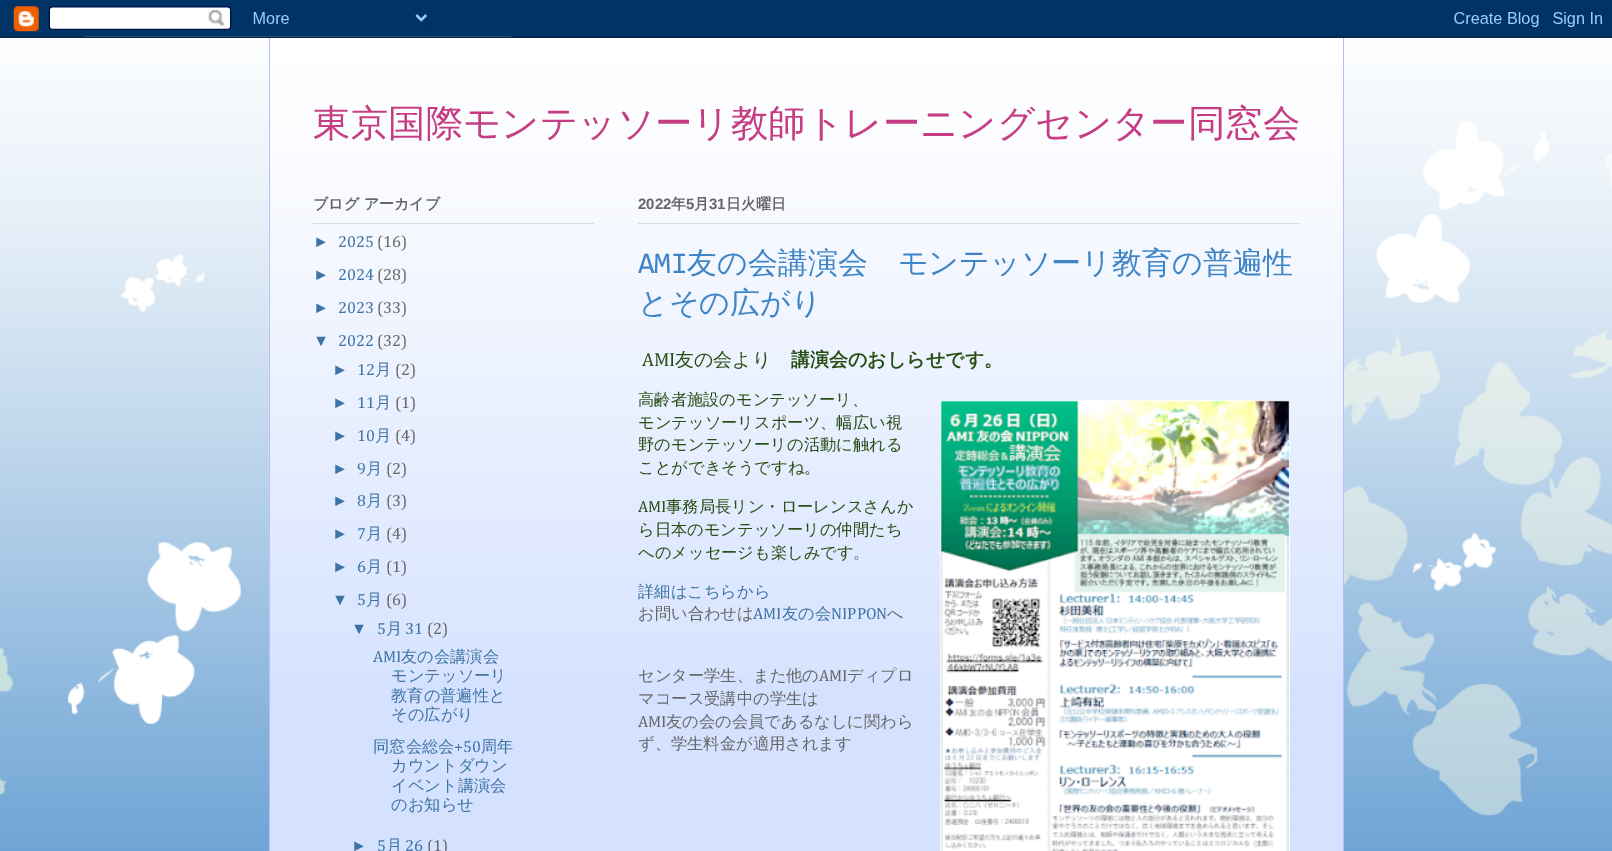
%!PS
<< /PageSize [1612 851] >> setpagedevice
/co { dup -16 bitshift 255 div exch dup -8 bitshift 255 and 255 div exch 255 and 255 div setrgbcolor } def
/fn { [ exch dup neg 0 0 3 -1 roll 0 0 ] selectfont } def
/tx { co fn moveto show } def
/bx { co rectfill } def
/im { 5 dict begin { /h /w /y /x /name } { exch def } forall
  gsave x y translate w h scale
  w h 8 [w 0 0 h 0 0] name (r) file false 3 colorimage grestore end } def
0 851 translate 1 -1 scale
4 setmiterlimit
0 0 1612 851 16#3D85C6 bx
(media/2.raw) 0 36 1612 815 im
(media/1.raw) 0 0 1612 38 im
270 46 1073 805 16#D4E1FF bx
(media/3.raw) 268 38 1075 639 im
1343 38 1 813 16#BBBBFF bx
269 38 1 813 16#BBBBFF bx
313 223 281 1 16#DBDBDB bx
638 223 662 1 16#DBDBDB bx
(media/4.raw) 940 400 350 451 im
(東京国際モンテッソーリ教師トレーニングセンター同窓会) 313 136 /WenQuanYiZenHei-Medium 37.5 16#C63D84 tx
(ブログ アーカイブ) 313 209 /WenQuanYiZenHei-Bold 15 16#666666 tx
(►) 313 247 /LiberationSans-Regular 16.25 16#3D74A5 tx
(2025) 338 247 /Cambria-Regular 16.25 16#3D74A5 tx
(\(16\)) 377 247 /Cambria-Regular 16.25 16#666666 tx
(►) 313 280 /LiberationSans-Regular 16.25 16#3D74A5 tx
(2024) 338 280 /Cambria-Regular 16.25 16#3D74A5 tx
(\(28\)) 377 280 /Cambria-Regular 16.25 16#666666 tx
(►) 313 313 /LiberationSans-Regular 16.25 16#3D74A5 tx
(2023) 338 313 /Cambria-Regular 16.25 16#3D74A5 tx
(\(33\)) 377 313 /Cambria-Regular 16.25 16#666666 tx
(▼) 313 346 /LiberationSans-Regular 16.25 16#3D74A5 tx
(2022) 338 346 /Cambria-Regular 16.25 16#3D74A5 tx
(\(32\)) 377 346 /Cambria-Regular 16.25 16#666666 tx
(►) 332 375 /LiberationSans-Regular 16.25 16#3D74A5 tx
(12) 357 375 /Cambria-Regular 16.25 16#3D74A5 tx
(月) 375 375 /WenQuanYiZenHei-Medium 16.25 16#3D74A5 tx
(\(2\)) 395 375 /Cambria-Regular 16.25 16#666666 tx
(►) 332 408 /LiberationSans-Regular 16.25 16#3D74A5 tx
(11) 357 408 /Cambria-Regular 16.25 16#3D74A5 tx
(月) 375 408 /WenQuanYiZenHei-Medium 16.25 16#3D74A5 tx
(\(1\)) 395 408 /Cambria-Regular 16.25 16#666666 tx
(►) 332 441 /LiberationSans-Regular 16.25 16#3D74A5 tx
(10) 357 441 /Cambria-Regular 16.25 16#3D74A5 tx
(月) 375 441 /WenQuanYiZenHei-Medium 16.25 16#3D74A5 tx
(\(4\)) 395 441 /Cambria-Regular 16.25 16#666666 tx
(►) 332 474 /LiberationSans-Regular 16.25 16#3D74A5 tx
(9) 357 474 /Cambria-Regular 16.25 16#3D74A5 tx
(月) 366 474 /WenQuanYiZenHei-Medium 16.25 16#3D74A5 tx
(\(2\)) 386 474 /Cambria-Regular 16.25 16#666666 tx
(►) 332 506 /LiberationSans-Regular 16.25 16#3D74A5 tx
(8) 357 506 /Cambria-Regular 16.25 16#3D74A5 tx
(月) 366 506 /WenQuanYiZenHei-Medium 16.25 16#3D74A5 tx
(\(3\)) 386 506 /Cambria-Regular 16.25 16#666666 tx
(►) 332 539 /LiberationSans-Regular 16.25 16#3D74A5 tx
(7) 357 539 /Cambria-Regular 16.25 16#3D74A5 tx
(月) 366 539 /WenQuanYiZenHei-Medium 16.25 16#3D74A5 tx
(\(4\)) 386 539 /Cambria-Regular 16.25 16#666666 tx
(►) 332 572 /LiberationSans-Regular 16.25 16#3D74A5 tx
(6) 357 572 /Cambria-Regular 16.25 16#3D74A5 tx
(月) 366 572 /WenQuanYiZenHei-Medium 16.25 16#3D74A5 tx
(\(1\)) 386 572 /Cambria-Regular 16.25 16#666666 tx
(▼) 332 605 /LiberationSans-Regular 16.25 16#3D74A5 tx
(5) 357 605 /Cambria-Regular 16.25 16#3D74A5 tx
(月) 366 605 /WenQuanYiZenHei-Medium 16.25 16#3D74A5 tx
(\(6\)) 386 605 /Cambria-Regular 16.25 16#666666 tx
(▼) 351 634 /LiberationSans-Regular 16.25 16#3D74A5 tx
(5) 377 634 /Cambria-Regular 16.25 16#3D74A5 tx
(月) 386 634 /WenQuanYiZenHei-Medium 16.25 16#3D74A5 tx
(31) 405 634 /Cambria-Regular 16.25 16#3D74A5 tx
(\(2\)) 427 634 /Cambria-Regular 16.25 16#666666 tx
(AMI) 373 662 /Cambria-Regular 16.25 16#3D74A5 tx
(友の会講演会) 401 662 /WenQuanYiZenHei-Medium 16.25 16#3D74A5 tx
(モンテッソーリ) 391 681 /WenQuanYiZenHei-Medium 16.25 16#3D74A5 tx
(教育の普遍性と) 391 701 /WenQuanYiZenHei-Medium 16.25 16#3D74A5 tx
(その広がり) 391 720 /WenQuanYiZenHei-Medium 16.25 16#3D74A5 tx
(同窓会総会) 373 752 /WenQuanYiZenHei-Medium 16.25 16#3D74A5 tx
(+50) 454 752 /Cambria-Regular 16.25 16#3D74A5 tx
(周年) 481 752 /WenQuanYiZenHei-Medium 16.25 16#3D74A5 tx
(カウントダウン) 391 771 /WenQuanYiZenHei-Medium 16.25 16#3D74A5 tx
(イベント講演会) 391 791 /WenQuanYiZenHei-Medium 16.25 16#3D74A5 tx
(のお知らせ) 391 810 /WenQuanYiZenHei-Medium 16.25 16#3D74A5 tx
(►) 351 851 /LiberationSans-Regular 16.25 16#3D74A5 tx
(5) 377 851 /Cambria-Regular 16.25 16#3D74A5 tx
(月) 386 851 /WenQuanYiZenHei-Medium 16.25 16#3D74A5 tx
(26) 405 851 /Cambria-Regular 16.25 16#3D74A5 tx
(\(1\)) 427 851 /Cambria-Regular 16.25 16#666666 tx
(2022) 638 209 /LiberationSans-Bold 15 16#666666 tx
(年) 671 209 /WenQuanYiZenHei-Bold 15 16#666666 tx
(5) 686 209 /LiberationSans-Bold 15 16#666666 tx
(月) 694 209 /WenQuanYiZenHei-Bold 15 16#666666 tx
(31) 709 209 /LiberationSans-Bold 15 16#666666 tx
(日火曜日) 726 209 /WenQuanYiZenHei-Bold 15 16#666666 tx
(AMI) 638 273 /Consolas-Regular 30 16#3D85C6 tx
(友の会講演会　モンテッソーリ教育の普遍性) 687 273 /WenQuanYiZenHei-Medium 30 16#3D85C6 tx
(とその広がり) 638 313 /WenQuanYiZenHei-Medium 30 16#3D85C6 tx
(AMI) 642 366 /Cambria-Regular 19 16#274E13 tx
(友の会より) 675 366 /WenQuanYiZenHei-Medium 19 16#274E13 tx
(講演会のおしらせです。) 791 366 /WenQuanYiZenHei-Bold 19 16#274E13 tx
(高齢者施設のモンテッソーリ、) 638 405 /WenQuanYiZenHei-Medium 16.25 16#274E13 tx
(モンテッソーリスポーツ、幅広い視) 638 428 /WenQuanYiZenHei-Medium 16.25 16#274E13 tx
(野のモンテッソーリの活動に触れる) 638 450 /WenQuanYiZenHei-Medium 16.25 16#274E13 tx
(ことができそうですね。) 638 473 /WenQuanYiZenHei-Medium 16.25 16#274E13 tx
(AMI) 638 512 /Cambria-Regular 16.25 16#274E13 tx
(事務局長リン・ローレンスさんか) 666 512 /WenQuanYiZenHei-Medium 16.25 16#274E13 tx
(ら日本のモンテッソーリの仲間たち) 638 535 /WenQuanYiZenHei-Medium 16.25 16#274E13 tx
(へのメッセージも楽しみです) 638 558 /WenQuanYiZenHei-Medium 16.25 16#274E13 tx
(。) 853 558 /WenQuanYiZenHei-Medium 16.25 16#666666 tx
(詳細はこちらから) 638 597 /WenQuanYiZenHei-Medium 16.25 16#3D74A5 tx
(お問い合わせは) 638 619 /WenQuanYiZenHei-Medium 16.25 16#666666 tx
(AMI) 753 619 /Cambria-Regular 16.25 16#3D74A5 tx
(友の会) 782 619 /WenQuanYiZenHei-Medium 16.25 16#3D74A5 tx
(NIPPON) 831 619 /Cambria-Regular 16.25 16#3D74A5 tx
(へ) 887 619 /WenQuanYiZenHei-Medium 16.25 16#666666 tx
(センター学生、また他の) 638 681 /WenQuanYiZenHei-Medium 16.25 16#666666 tx
(AMI) 819 681 /Cambria-Regular 16.25 16#666666 tx
(ディプロ) 847 681 /WenQuanYiZenHei-Medium 16.25 16#666666 tx
(マコース受講中の学生は) 638 704 /WenQuanYiZenHei-Medium 16.25 16#666666 tx
(AMI) 638 727 /Cambria-Regular 16.25 16#666666 tx
(友の会の会員であるなしに関わら) 666 727 /WenQuanYiZenHei-Medium 16.25 16#666666 tx
(ず、学生料金が適用されます) 638 749 /WenQuanYiZenHei-Medium 16.25 16#666666 tx
showpage
